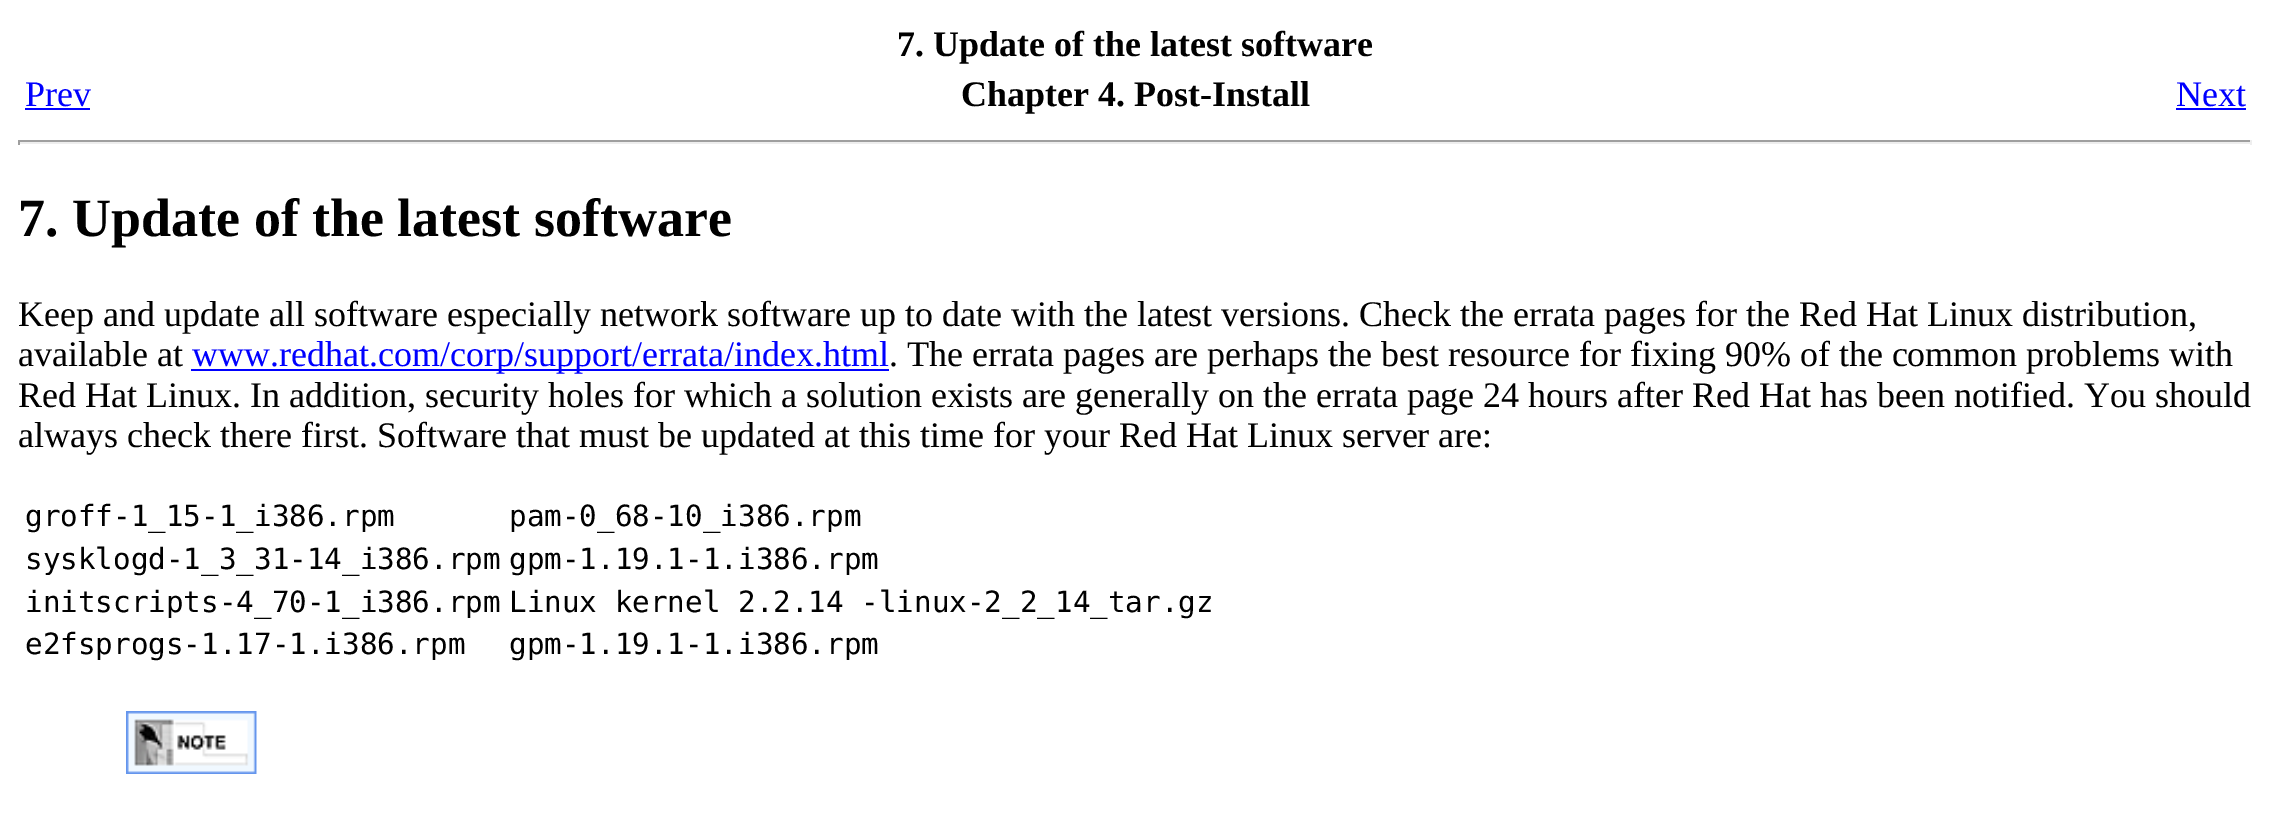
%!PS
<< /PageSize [2270 817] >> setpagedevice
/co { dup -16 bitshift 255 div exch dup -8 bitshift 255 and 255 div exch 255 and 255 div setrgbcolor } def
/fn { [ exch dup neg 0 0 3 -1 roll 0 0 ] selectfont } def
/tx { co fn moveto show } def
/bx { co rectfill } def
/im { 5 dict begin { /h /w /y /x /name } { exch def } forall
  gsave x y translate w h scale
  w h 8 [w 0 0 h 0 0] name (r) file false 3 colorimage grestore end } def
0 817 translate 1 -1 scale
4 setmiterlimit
0 0 2270 817 16#FFFFFF bx
25 108 65 2 16#0000FF bx
2176 108 70 2 16#0000FF bx
18 140 2234 2 16#9F9F9F bx
2250 140 2 5 16#EEEEEE bx
18 142 2234 2 16#EEEEEE bx
18 140 2 5 16#9F9F9F bx
191 369 698 2 16#0000FF bx
(media/1.raw) 126 711 131 63 im
(7. Update of the latest software) 897 56 /LiberationSerif-Bold 36 16#000000 tx
(Prev) 25 106 /LiberationSerif-Regular 36 16#0000FF tx
(Chapter 4. Post-Install) 961 106 /LiberationSerif-Bold 36 16#000000 tx
(Next) 2176 106 /LiberationSerif-Regular 36 16#0000FF tx
(7. Update of the latest software) 18 236 /LiberationSerif-Bold 54 16#000000 tx
(Keep and update all software especially network software up to date with the latest versions. Check the errata pages for the Red Hat Linux distribution,) 18 326 /LiberationSerif-Regular 36 16#000000 tx
(available at) 18 366 /LiberationSerif-Regular 36 16#000000 tx
(www.redhat.com/corp/support/errata/index.html) 192 366 /LiberationSerif-Regular 36 16#0000FF tx
(. The errata pages are perhaps the best resource for fixing 90% of the common problems with) 889 366 /LiberationSerif-Regular 36 16#000000 tx
(Red Hat Linux. In addition, security holes for which a solution exists are generally on the errata page 24 hours after Red Hat has been notified. You should) 18 407 /LiberationSerif-Regular 36 16#000000 tx
(always check there first. Software that must be updated at this time for your Red Hat Linux server are:) 18 447 /LiberationSerif-Regular 36 16#000000 tx
(groff-1_15-1_i386.rpm) 25 526 /DejaVuSansMono-Regular 29.25 16#000000 tx
(pam-0_68-10_i386.rpm) 509 526 /DejaVuSansMono-Regular 29.25 16#000000 tx
(sysklogd-1_3_31-14_i386.rpm) 25 569 /DejaVuSansMono-Regular 29.25 16#000000 tx
(gpm-1.19.1-1.i386.rpm) 509 569 /DejaVuSansMono-Regular 29.25 16#000000 tx
(initscripts-4_70-1_i386.rpm) 25 612 /DejaVuSansMono-Regular 29.25 16#000000 tx
(Linux kernel 2.2.14 -linux-2_2_14_tar.gz) 509 612 /DejaVuSansMono-Regular 29.25 16#000000 tx
(e2fsprogs-1.17-1.i386.rpm) 25 654 /DejaVuSansMono-Regular 29.25 16#000000 tx
(gpm-1.19.1-1.i386.rpm) 509 654 /DejaVuSansMono-Regular 29.25 16#000000 tx
showpage
